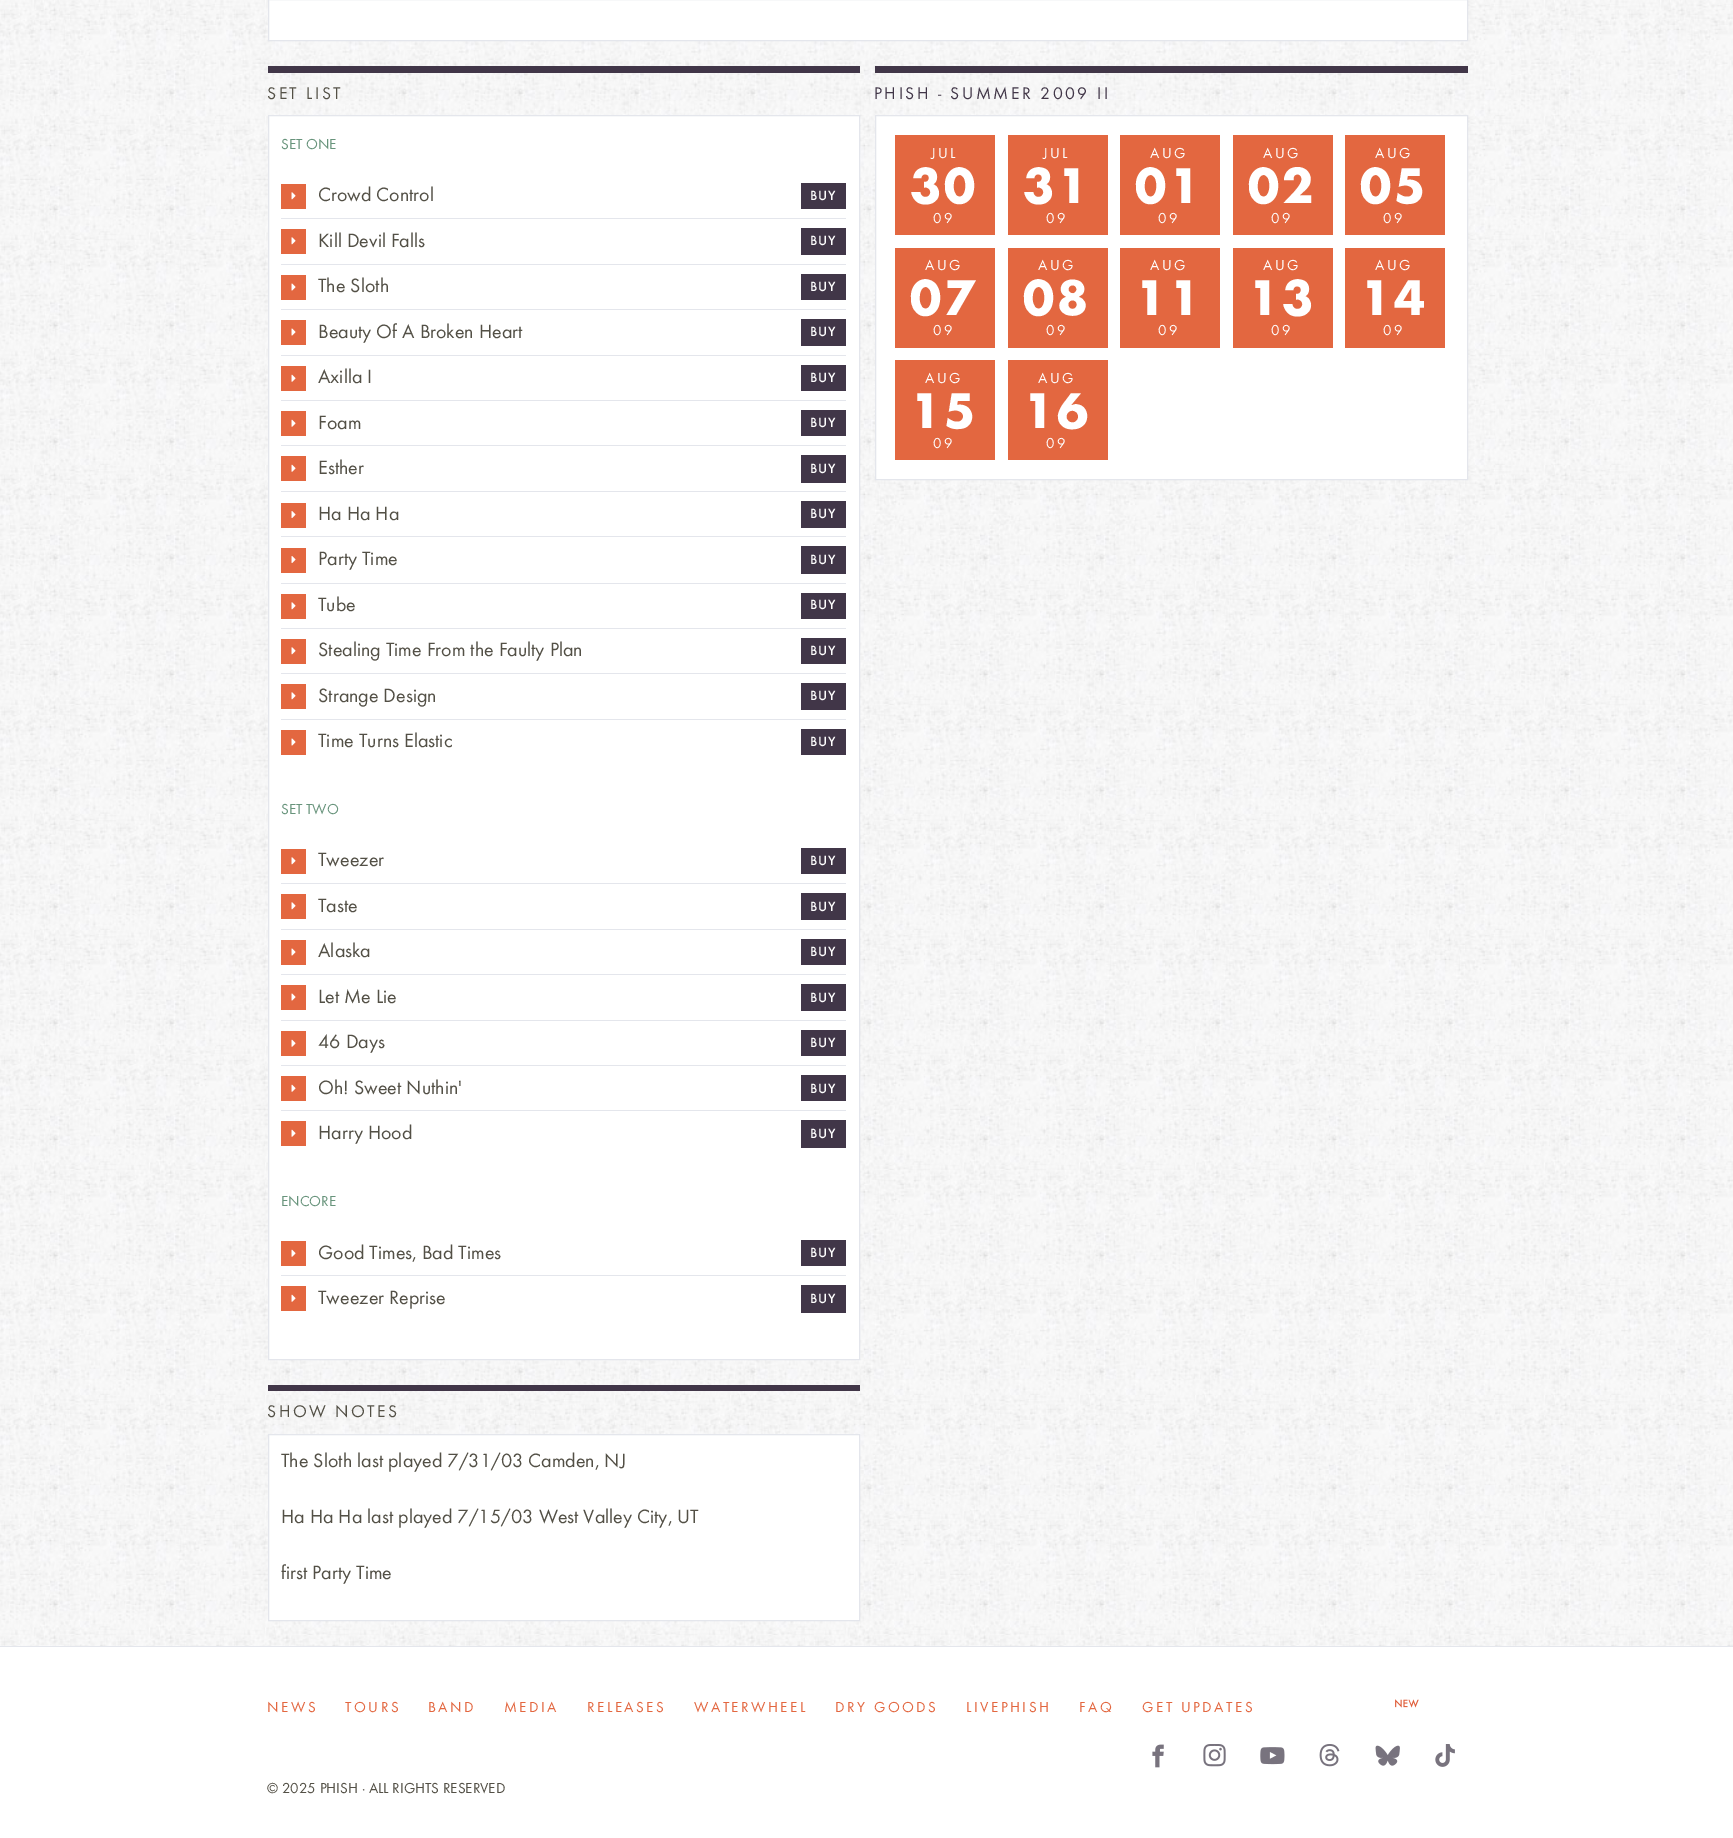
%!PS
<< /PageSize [1733 1838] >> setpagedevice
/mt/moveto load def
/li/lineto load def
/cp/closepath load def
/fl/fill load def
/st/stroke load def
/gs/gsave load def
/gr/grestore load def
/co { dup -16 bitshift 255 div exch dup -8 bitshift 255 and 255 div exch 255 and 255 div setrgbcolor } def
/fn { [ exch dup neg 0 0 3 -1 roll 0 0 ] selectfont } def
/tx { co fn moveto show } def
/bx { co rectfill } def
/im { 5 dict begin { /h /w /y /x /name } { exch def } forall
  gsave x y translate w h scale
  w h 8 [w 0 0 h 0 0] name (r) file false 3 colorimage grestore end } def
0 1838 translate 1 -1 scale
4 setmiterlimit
0 0 1733 1838 16#FFFFFF bx
(media/1.raw) 0 0 1733 1646 im
268.5 -.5 mt 1467.5 -.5 li 1467.5 40.5 li 268.5 40.5 li cp gs fl gr
16#E4E6EC co
st
268 66 592 7 16#413648 bx
16#FFFFFF co
268.5 115.5 mt 859.5 115.5 li 859.5 1359.5 li 268.5 1359.5 li cp gs fl gr
16#E4E6EC co
st
281 184 25 25 16#E36740 bx
(media/2.raw) 291 192 5 8 im
801 183 45 26 16#413648 bx
281 218 565 1 16#E4E6EC bx
281 229 25 25 16#E36740 bx
(media/2.raw) 291 237 5 8 im
801 228 45 27 16#413648 bx
281 264 565 1 16#E4E6EC bx
281 275 25 25 16#E36740 bx
(media/3.raw) 291 283 5 8 im
801 274 45 26 16#413648 bx
281 309 565 1 16#E4E6EC bx
281 320 25 25 16#E36740 bx
(media/3.raw) 291 328 5 8 im
801 319 45 27 16#413648 bx
281 355 565 1 16#E4E6EC bx
281 366 25 25 16#E36740 bx
(media/4.raw) 291 374 5 8 im
801 365 45 26 16#413648 bx
281 400 565 1 16#E4E6EC bx
281 411 25 25 16#E36740 bx
(media/4.raw) 291 419 5 8 im
801 410 45 26 16#413648 bx
281 445 565 1 16#E4E6EC bx
281 456 25 25 16#E36740 bx
(media/4.raw) 291 464 5 8 im
801 455 45 28 16#413648 bx
281 491 565 1 16#E4E6EC bx
281 503 25 25 16#E36740 bx
(media/5.raw) 291 511 5 7 im
801 501 45 27 16#413648 bx
281 536 565 1 16#E4E6EC bx
281 548 25 25 16#E36740 bx
(media/5.raw) 291 556 5 7 im
801 546 45 28 16#413648 bx
281 583 565 1 16#E4E6EC bx
281 594 25 25 16#E36740 bx
(media/2.raw) 291 602 5 8 im
801 593 45 26 16#413648 bx
281 628 565 1 16#E4E6EC bx
281 639 25 25 16#E36740 bx
(media/2.raw) 291 647 5 8 im
801 638 45 26 16#413648 bx
281 673 565 1 16#E4E6EC bx
281 684 25 25 16#E36740 bx
(media/2.raw) 291 692 5 8 im
801 683 45 27 16#413648 bx
281 719 565 1 16#E4E6EC bx
281 730 25 25 16#E36740 bx
(media/3.raw) 291 738 5 8 im
801 729 45 26 16#413648 bx
281 849 25 25 16#E36740 bx
(media/2.raw) 291 857 5 8 im
801 848 45 26 16#413648 bx
281 883 565 1 16#E4E6EC bx
281 894 25 25 16#E36740 bx
(media/2.raw) 291 902 5 8 im
801 893 45 27 16#413648 bx
281 929 565 1 16#E4E6EC bx
281 940 25 25 16#E36740 bx
(media/3.raw) 291 948 5 8 im
801 939 45 26 16#413648 bx
281 974 565 1 16#E4E6EC bx
281 985 25 25 16#E36740 bx
(media/3.raw) 291 993 5 8 im
801 984 45 27 16#413648 bx
281 1020 565 1 16#E4E6EC bx
281 1031 25 25 16#E36740 bx
(media/4.raw) 291 1039 5 8 im
801 1030 45 26 16#413648 bx
281 1065 565 1 16#E4E6EC bx
281 1076 25 25 16#E36740 bx
(media/4.raw) 291 1084 5 8 im
801 1075 45 26 16#413648 bx
281 1110 565 1 16#E4E6EC bx
281 1121 25 25 16#E36740 bx
(media/4.raw) 291 1129 5 8 im
801 1120 45 28 16#413648 bx
281 1241 25 25 16#E36740 bx
(media/4.raw) 291 1249 5 8 im
801 1240 45 26 16#413648 bx
281 1275 565 1 16#E4E6EC bx
281 1286 25 25 16#E36740 bx
(media/4.raw) 291 1294 5 8 im
801 1285 45 28 16#413648 bx
268 1385 592 6 16#413648 bx
16#FFFFFF co
268.5 1434.5 mt 859.5 1434.5 li 859.5 1620.5 li 268.5 1620.5 li cp gs fl gr
16#E4E6EC co
st
875 66 593 7 16#413648 bx
16#FFFFFF co
875.5 115.5 mt 1467.5 115.5 li 1467.5 479.5 li 875.5 479.5 li cp gs fl gr
16#E4E6EC co
st
895 135 100 100 16#E36740 bx
1008 135 100 100 16#E36740 bx
1120 135 100 100 16#E36740 bx
1233 135 100 100 16#E36740 bx
1345 135 100 100 16#E36740 bx
895 248 100 100 16#E36740 bx
1008 248 100 100 16#E36740 bx
1120 248 100 100 16#E36740 bx
1233 248 100 100 16#E36740 bx
1345 248 100 100 16#E36740 bx
895 360 100 100 16#E36740 bx
1008 360 100 100 16#E36740 bx
0 1646 1733 1 16#E4E6EC bx
(media/6.raw) 1395 1699 24 9 im
(media/7.raw) 1152 1744 12 24 im
(media/8.raw) 1203 1744 23 23 im
(media/9.raw) 1260 1747 25 18 im
(media/10.raw) 1319 1744 21 23 im
(media/11.raw) 1375 1745 25 21 im
(media/12.raw) 1435 1744 20 23 im
/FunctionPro-Regular 17.5 fn
16#535046 co
267 99 mt 2.5 0 (SET LIST) ashow
(SET ONE) 281 149 /FunctionPro-Regular 15 16#68947C tx
(Crowd Control) 318 201 /FunctionPro-Regular 20 16#535046 tx
/FunctionPro-Medium 14 fn
16#FFFFFF co
810 200 mt 1 0 (BUY) ashow
(Kill Devil Falls) 318 247 /FunctionPro-Regular 20 16#535046 tx
/FunctionPro-Medium 14 fn
16#FFFFFF co
810 245 mt 1 0 (BUY) ashow
(The Sloth) 318 292 /FunctionPro-Regular 20 16#535046 tx
/FunctionPro-Medium 14 fn
16#FFFFFF co
810 291 mt 1 0 (BUY) ashow
(Beauty Of A Broken Heart) 318 338 /FunctionPro-Regular 20 16#535046 tx
/FunctionPro-Medium 14 fn
16#FFFFFF co
810 336 mt 1 0 (BUY) ashow
(Axilla I) 318 383 /FunctionPro-Regular 20 16#535046 tx
/FunctionPro-Medium 14 fn
16#FFFFFF co
810 382 mt 1 0 (BUY) ashow
(Foam) 318 429 /FunctionPro-Regular 20 16#535046 tx
/FunctionPro-Medium 14 fn
16#FFFFFF co
810 427 mt 1 0 (BUY) ashow
(Esther) 318 474 /FunctionPro-Regular 20 16#535046 tx
/FunctionPro-Medium 14 fn
16#FFFFFF co
810 473 mt 1 0 (BUY) ashow
(Ha Ha Ha) 318 520 /FunctionPro-Regular 20 16#535046 tx
/FunctionPro-Medium 14 fn
16#FFFFFF co
810 518 mt 1 0 (BUY) ashow
(Party Time) 318 565 /FunctionPro-Regular 20 16#535046 tx
/FunctionPro-Medium 14 fn
16#FFFFFF co
810 564 mt 1 0 (BUY) ashow
(Tube) 318 611 /FunctionPro-Regular 20 16#535046 tx
/FunctionPro-Medium 14 fn
16#FFFFFF co
810 609 mt 1 0 (BUY) ashow
(Stealing Time From the Faulty Plan) 318 656 /FunctionPro-Regular 20 16#535046 tx
/FunctionPro-Medium 14 fn
16#FFFFFF co
810 655 mt 1 0 (BUY) ashow
(Strange Design) 318 702 /FunctionPro-Regular 20 16#535046 tx
/FunctionPro-Medium 14 fn
16#FFFFFF co
810 700 mt 1 0 (BUY) ashow
(Time Turns Elastic) 318 747 /FunctionPro-Regular 20 16#535046 tx
/FunctionPro-Medium 14 fn
16#FFFFFF co
810 746 mt 1 0 (BUY) ashow
(SET TWO) 281 814 /FunctionPro-Regular 15 16#68947C tx
(Tweezer) 318 866 /FunctionPro-Regular 20 16#535046 tx
/FunctionPro-Medium 14 fn
16#FFFFFF co
810 865 mt 1 0 (BUY) ashow
(Taste) 318 912 /FunctionPro-Regular 20 16#535046 tx
/FunctionPro-Medium 14 fn
16#FFFFFF co
810 911 mt 1 0 (BUY) ashow
(Alaska) 318 957 /FunctionPro-Regular 20 16#535046 tx
/FunctionPro-Medium 14 fn
16#FFFFFF co
810 956 mt 1 0 (BUY) ashow
(Let Me Lie) 318 1003 /FunctionPro-Regular 20 16#535046 tx
/FunctionPro-Medium 14 fn
16#FFFFFF co
810 1002 mt 1 0 (BUY) ashow
(46 Days) 318 1048 /FunctionPro-Regular 20 16#535046 tx
/FunctionPro-Medium 14 fn
16#FFFFFF co
810 1047 mt 1 0 (BUY) ashow
(Oh! Sweet Nuthin') 318 1094 /FunctionPro-Regular 20 16#535046 tx
/FunctionPro-Medium 14 fn
16#FFFFFF co
810 1093 mt 1 0 (BUY) ashow
(Harry Hood) 318 1139 /FunctionPro-Regular 20 16#535046 tx
/FunctionPro-Medium 14 fn
16#FFFFFF co
810 1138 mt 1 0 (BUY) ashow
(ENCORE) 281 1206 /FunctionPro-Regular 15 16#68947C tx
(Good Times, Bad Times) 318 1259 /FunctionPro-Regular 20 16#535046 tx
/FunctionPro-Medium 14 fn
16#FFFFFF co
810 1257 mt 1 0 (BUY) ashow
(Tweezer Reprise) 318 1304 /FunctionPro-Regular 20 16#535046 tx
/FunctionPro-Medium 14 fn
16#FFFFFF co
810 1303 mt 1 0 (BUY) ashow
/FunctionPro-Regular 17.5 fn
16#535046 co
267 1417 mt 2.5 0 (SHOW NOTES) ashow
(The Sloth last played 7/31/03 Camden, NJ) 281 1467 /FunctionPro-Regular 20 16#535046 tx
(Ha Ha Ha last played 7/15/03 West Valley City, UT) 281 1523 /FunctionPro-Regular 20 16#535046 tx
(first Party Time) 281 1579 /FunctionPro-Regular 20 16#535046 tx
/FunctionPro-Regular 17.5 fn
16#413648 co
874 99 mt 2.5 0 (PHISH - SUMMER 2009 II) ashow
/FunctionPro-Regular 15 fn
16#FFFFFF co
931 158 mt 2.5 0 (JUL) ashow
/FunctionPro-Bold 52 fn
910 203 mt 2.5 0 (30) ashow
/FunctionPro-Regular 15 fn
933 223 mt 2.5 0 (09) ashow
1043 158 mt 2.5 0 (JUL) ashow
/FunctionPro-Bold 52 fn
1023 203 mt 2.5 0 (31) ashow
/FunctionPro-Regular 15 fn
1046 223 mt 2.5 0 (09) ashow
1150 158 mt 2.5 0 (AUG) ashow
/FunctionPro-Bold 52 fn
1135 203 mt 2.5 0 (01) ashow
/FunctionPro-Regular 15 fn
1158 223 mt 2.5 0 (09) ashow
1263 158 mt 2.5 0 (AUG) ashow
/FunctionPro-Bold 52 fn
1248 203 mt 2.5 0 (02) ashow
/FunctionPro-Regular 15 fn
1271 223 mt 2.5 0 (09) ashow
1375 158 mt 2.5 0 (AUG) ashow
/FunctionPro-Bold 52 fn
1360 203 mt 2.5 0 (05) ashow
/FunctionPro-Regular 15 fn
1383 223 mt 2.5 0 (09) ashow
925 270 mt 2.5 0 (AUG) ashow
/FunctionPro-Bold 52 fn
910 315 mt 2.5 0 (07) ashow
/FunctionPro-Regular 15 fn
933 335 mt 2.5 0 (09) ashow
1038 270 mt 2.5 0 (AUG) ashow
/FunctionPro-Bold 52 fn
1023 315 mt 2.5 0 (08) ashow
/FunctionPro-Regular 15 fn
1046 335 mt 2.5 0 (09) ashow
1150 270 mt 2.5 0 (AUG) ashow
/FunctionPro-Bold 52 fn
1135 315 mt 2.5 0 (11) ashow
/FunctionPro-Regular 15 fn
1158 335 mt 2.5 0 (09) ashow
1263 270 mt 2.5 0 (AUG) ashow
/FunctionPro-Bold 52 fn
1248 315 mt 2.5 0 (13) ashow
/FunctionPro-Regular 15 fn
1271 335 mt 2.5 0 (09) ashow
1375 270 mt 2.5 0 (AUG) ashow
/FunctionPro-Bold 52 fn
1360 315 mt 2.5 0 (14) ashow
/FunctionPro-Regular 15 fn
1383 335 mt 2.5 0 (09) ashow
925 383 mt 2.5 0 (AUG) ashow
/FunctionPro-Bold 52 fn
910 428 mt 2.5 0 (15) ashow
/FunctionPro-Regular 15 fn
933 448 mt 2.5 0 (09) ashow
1038 383 mt 2.5 0 (AUG) ashow
/FunctionPro-Bold 52 fn
1023 428 mt 2.5 0 (16) ashow
/FunctionPro-Regular 15 fn
1046 448 mt 2.5 0 (09) ashow
16#E36740 co
267 1712 mt 2.5 0 (NEWS) ashow
345 1712 mt 2.5 0 (TOURS) ashow
428 1712 mt 2.5 0 (BAND) ashow
504 1712 mt 2.5 0 (MEDIA) ashow
587 1712 mt 2.5 0 (RELEASES) ashow
694 1712 mt 2.5 0 (WATERWHEEL) ashow
835 1712 mt 2.5 0 (DRY GOODS) ashow
966 1712 mt 2.5 0 (LIVEPHISH) ashow
1079 1712 mt 2.5 0 (FAQ) ashow
1142 1712 mt 2.5 0 (GET UPDATES) ashow
(© 2025 PHISH · ALL RIGHTS RESERVED) 267 1793 /FunctionPro-Regular 15 16#535046 tx
showpage
